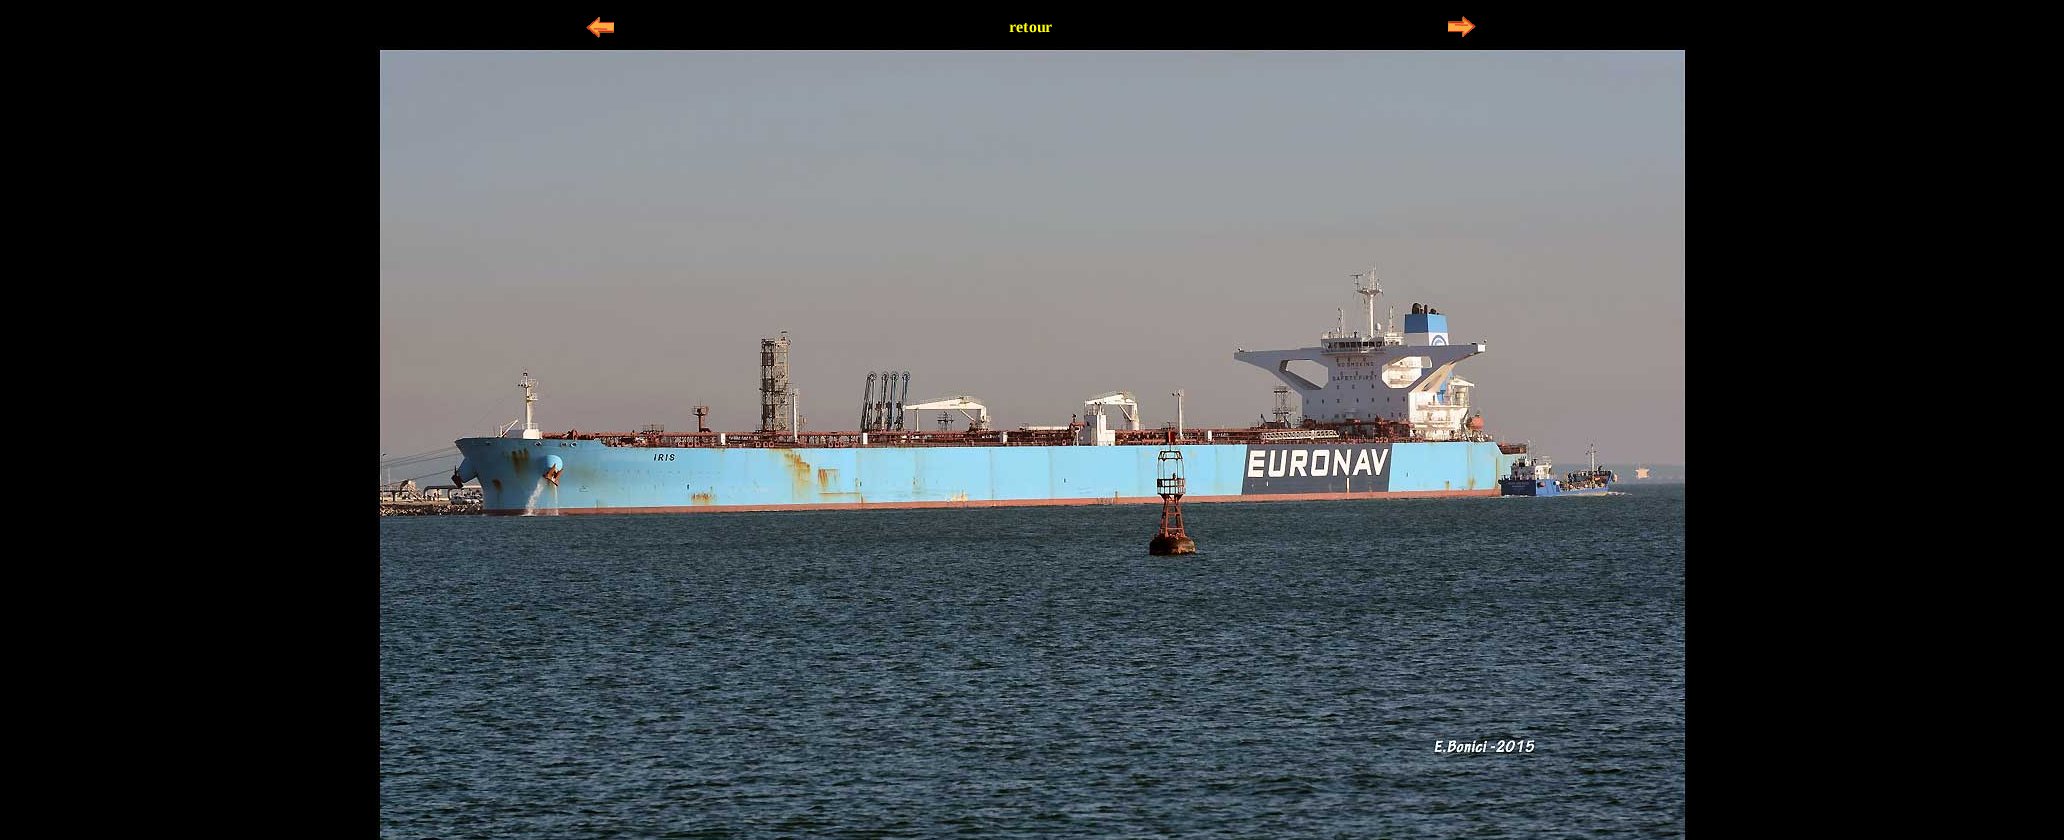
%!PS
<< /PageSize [2064 840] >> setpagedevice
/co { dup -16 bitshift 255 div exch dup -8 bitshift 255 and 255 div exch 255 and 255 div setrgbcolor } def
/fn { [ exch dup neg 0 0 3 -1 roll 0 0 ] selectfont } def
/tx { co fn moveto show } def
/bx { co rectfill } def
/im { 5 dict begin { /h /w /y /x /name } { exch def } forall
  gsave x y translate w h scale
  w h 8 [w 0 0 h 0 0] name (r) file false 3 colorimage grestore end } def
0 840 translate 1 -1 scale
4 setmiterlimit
0 0 2064 840 16#000000 bx
(media/1.raw) 586 17 28 21 im
(media/2.raw) 1448 16 28 21 im
(media/3.raw) 376 46 1312 794 im
(retour) 1009 32 /LiberationSerif-Bold 16 16#FFFF00 tx
showpage
